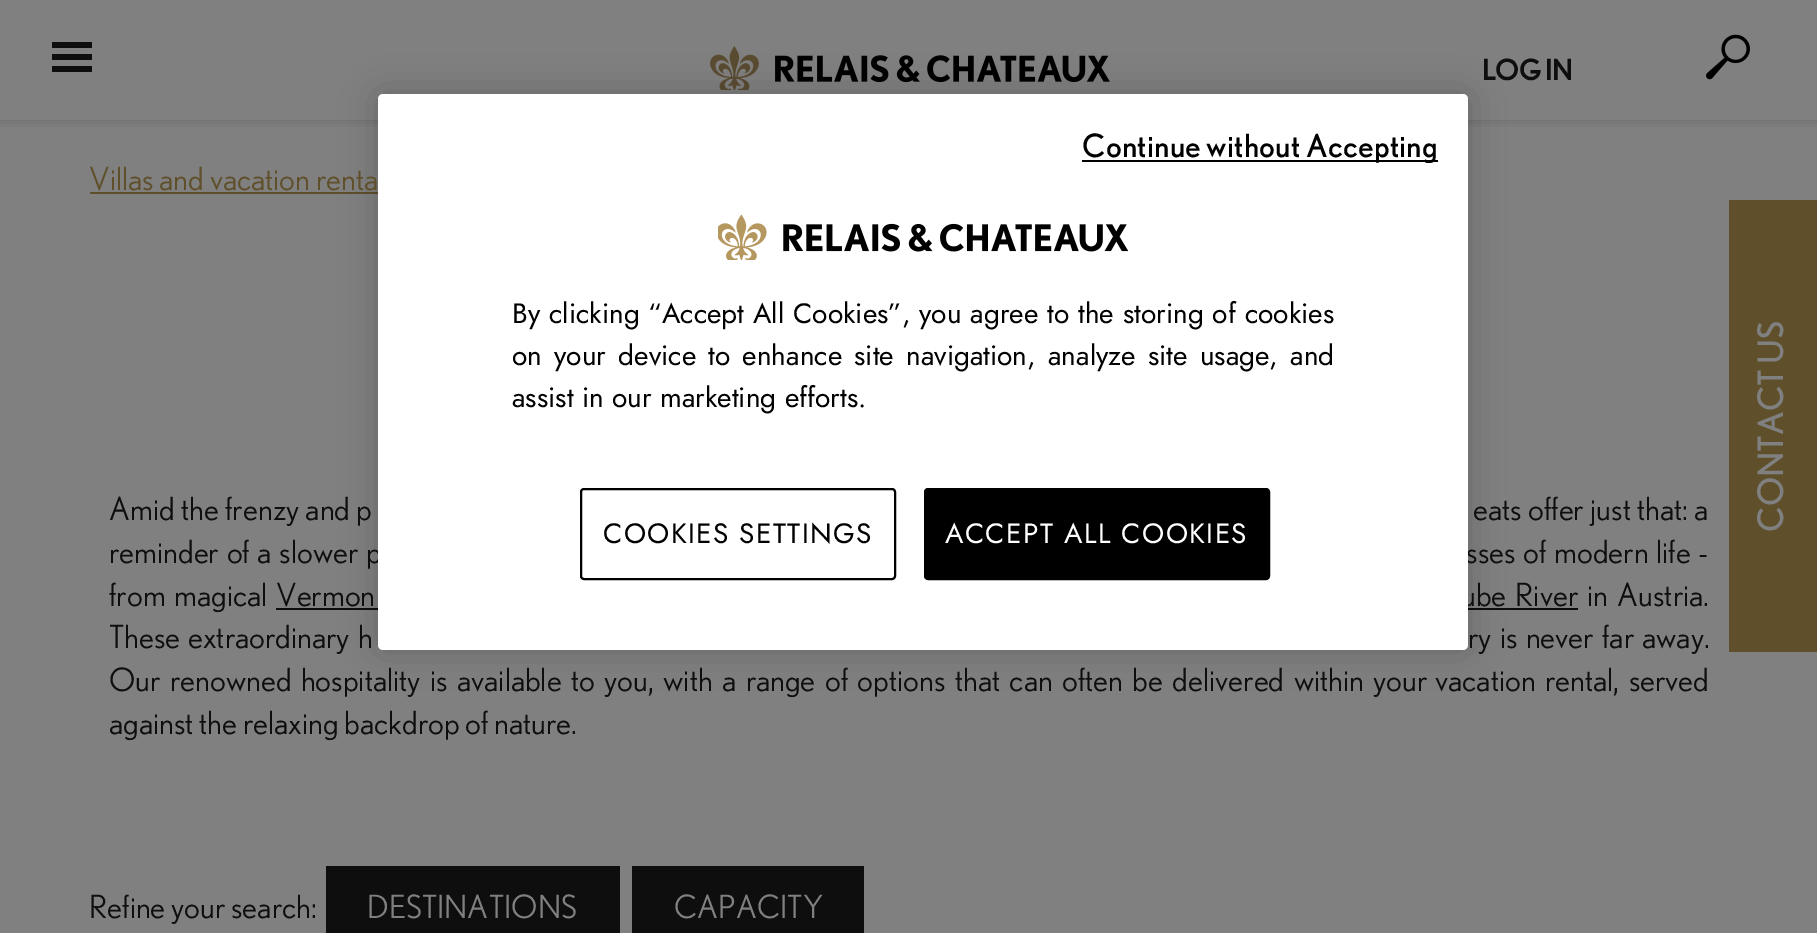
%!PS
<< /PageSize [1817 933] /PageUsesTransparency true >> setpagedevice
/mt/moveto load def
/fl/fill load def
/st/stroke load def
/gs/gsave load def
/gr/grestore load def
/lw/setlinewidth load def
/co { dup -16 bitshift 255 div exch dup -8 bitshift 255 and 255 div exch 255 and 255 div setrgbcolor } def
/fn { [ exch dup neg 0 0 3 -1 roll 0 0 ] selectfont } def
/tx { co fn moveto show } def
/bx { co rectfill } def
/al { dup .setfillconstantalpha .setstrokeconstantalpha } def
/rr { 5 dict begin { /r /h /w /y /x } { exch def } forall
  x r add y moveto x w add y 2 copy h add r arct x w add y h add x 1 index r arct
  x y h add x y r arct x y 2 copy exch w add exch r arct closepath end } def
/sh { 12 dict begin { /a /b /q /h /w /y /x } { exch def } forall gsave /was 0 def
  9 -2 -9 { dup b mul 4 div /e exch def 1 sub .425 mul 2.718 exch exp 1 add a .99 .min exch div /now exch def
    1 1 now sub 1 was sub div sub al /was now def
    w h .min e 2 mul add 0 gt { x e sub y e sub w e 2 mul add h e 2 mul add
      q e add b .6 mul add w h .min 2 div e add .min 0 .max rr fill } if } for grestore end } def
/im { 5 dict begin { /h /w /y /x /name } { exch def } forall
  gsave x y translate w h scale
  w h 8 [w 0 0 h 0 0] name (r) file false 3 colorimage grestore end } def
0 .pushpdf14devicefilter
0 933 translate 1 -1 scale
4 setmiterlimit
0 0 1817 933 16#808080 bx
gs
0 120 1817 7 rectclip
16#303438 co
0 0 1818 120 0 5 .3 sh
gr
52 54 40 6 16#0E0E0E bx
52 42 40 6 16#0E0E0E bx
52 66 40 6 16#0E0E0E bx
(media/1.raw) 710 46 400 44 im
(media/2.raw) 1706 34 44 46 im
90 192 288 2 16#5F4F2B bx
276 608 102 2 16#0E0E0E bx
1468 608 110 2 16#0E0E0E bx
16#000000 co
378 94 1090 556 5 18 .2 sh
326 866 294 67 16#0E0E0E bx
632 866 232 67 16#0E0E0E bx
1729 200 88 452 16#5F4F2B bx
(LOG IN) 1482 80 /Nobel-Bold 28 16#0E0E0E tx
(Villas and vacation renta) 89 190 /Nobel-Regular 32 16#5F4F2B tx
16#0E0E0E co
109 520 mt .5 0 32 (Amid the frenzy and p) widthshow
1473 520 mt .5 0 32 (eats) widthshow
1528 520 mt .5 0 32 (offer just that: a) widthshow
109 563 mt 2 0 32 (reminder of a slower p) widthshow
1466 563 mt 2 0 32 (sses of modern life -) widthshow
109 606 mt 3 0 32 (from magical) widthshow
276 606 mt 3 0 32 (Vermon) widthshow
1461 606 mt 3 0 32 (ube River) widthshow
16#FFFFFF co
378 94 1090 556 5 rr fl
1082 160 356 2 16#000000 bx
/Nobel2-Regular 32 fn
1082 157 mt .3 0 (Continue without Accepting) ashow
(media/3.raw) 718 214 410 46 im
2 lw
581 489 314 90 3 rr st
/Jost-Regular 28 fn
603 543 mt 1.4 0 (COOKIES SETTINGS) ashow
925 489 344 90 3 rr gs fl gr
st
16#FFFFFF co
945 543 mt 1.4 0 (ACCEPT ALL COOKIES) ashow
(assist in our marketing efforts.) 512 407 /Jost-Regular 28 16#000000 tx
512 365 mt 3.75 0 32 (on your device to enhance site navigation, analyze site usage, and) widthshow
512 323 mt .5 0 32 (By clicking “Accept All Cookies”, you agree to the storing of cookies) widthshow
/Nobel-Regular 32 fn
16#0E0E0E co
1587 606 mt 3 0 32 (in Austria.) widthshow
(These) 109 648 /Nobel-Regular 32 16#0E0E0E tx
188 648 mt 2.5 0 32 (extraordinary h) widthshow
1468 648 mt 2.5 0 32 (ry is never far away.) widthshow
109 691 mt 3.75 0 32 (Our renowned hospitality is available to you, with a range of options that can often be delivered within your) widthshow
1435 691 mt 3.75 0 32 (vacation rental, served) widthshow
(against the relaxing backdrop of nature.) 109 734 /Nobel-Regular 32 16#0E0E0E tx
(Refine your search:) 89 918 /Nobel-Regular 32 16#0E0E0E tx
(DESTINATIONS) 367 918 /Nobel-Regular 32 16#808080 tx
(CAPACITY) 674 918 /Nobel-Regular 32 16#808080 tx
/Nobel2-Regular 35 fn
gs 1783 532 translate -90 rotate 0 0 mt (CONTACT US) show gr
.poppdf14devicefilter showpage
